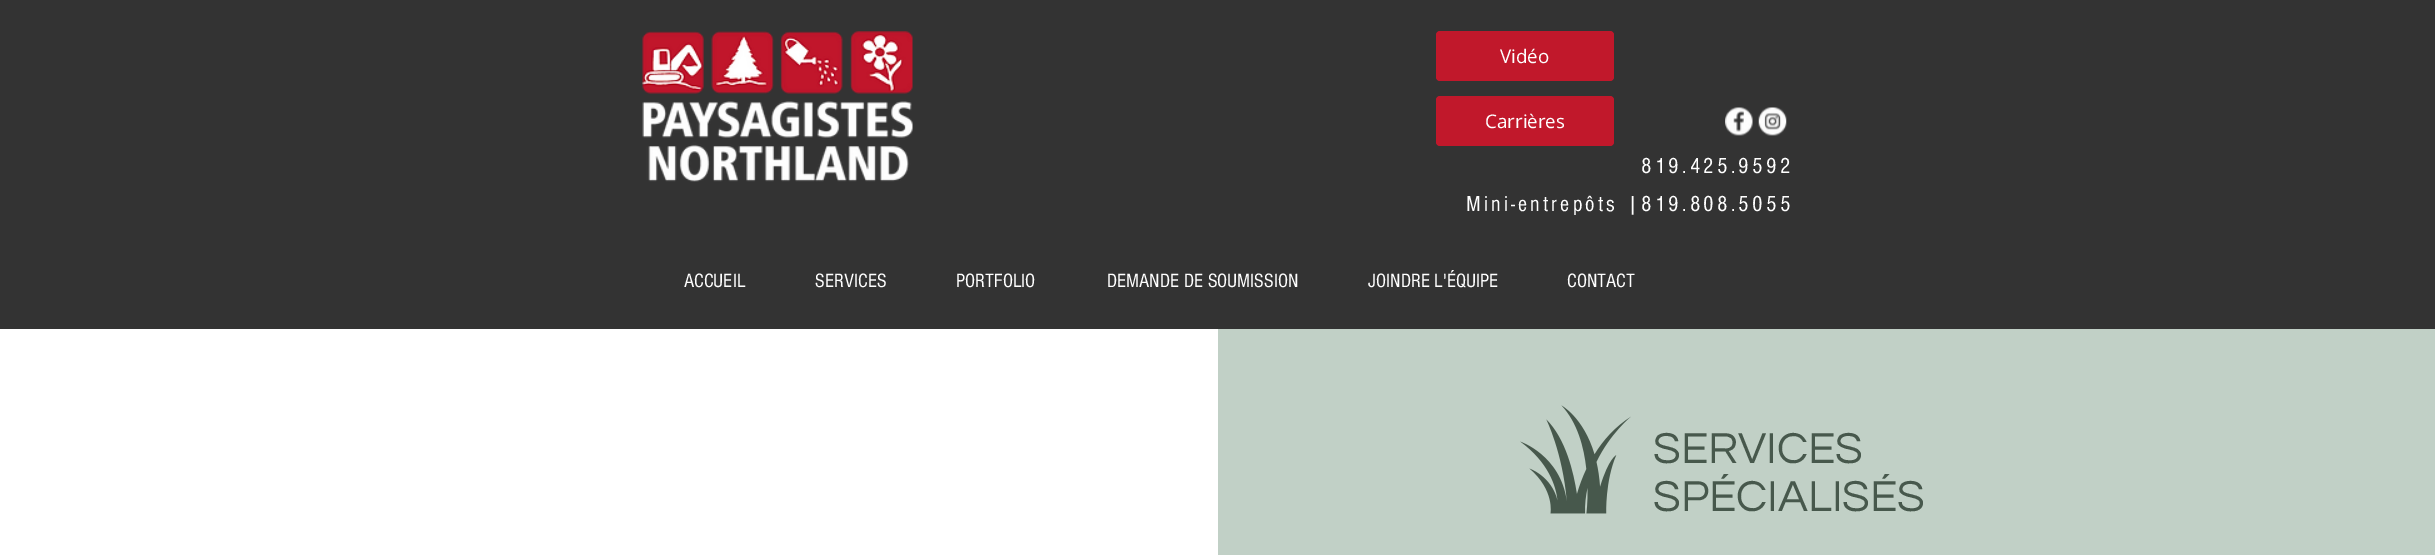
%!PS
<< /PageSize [2435 555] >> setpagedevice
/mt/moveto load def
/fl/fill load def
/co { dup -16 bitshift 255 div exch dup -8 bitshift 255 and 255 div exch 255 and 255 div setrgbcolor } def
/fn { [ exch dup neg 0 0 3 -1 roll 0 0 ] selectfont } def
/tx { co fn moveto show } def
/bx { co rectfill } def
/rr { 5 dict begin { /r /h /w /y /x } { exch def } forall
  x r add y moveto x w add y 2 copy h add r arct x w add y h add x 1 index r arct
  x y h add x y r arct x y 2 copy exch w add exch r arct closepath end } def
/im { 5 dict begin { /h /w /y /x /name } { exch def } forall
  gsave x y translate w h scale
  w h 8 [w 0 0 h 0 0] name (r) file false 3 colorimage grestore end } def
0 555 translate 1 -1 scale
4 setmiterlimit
0 0 2435 555 16#FFFFFF bx
0 0 2435 329 16#333333 bx
(media/1.raw) 642 31 271 151 im
16#C1182B co
1436 31 178 50 4 rr fl
1436 96 178 50 4 rr fl
(media/2.raw) 1725 107 28 29 im
(media/3.raw) 1758 107 29 29 im
1218 329 1217 226 16#C1D0C6 bx
(media/4.raw) 1520 405 111 109 im
(Vidéo) 1500 63 /OpenSans-Regular 18.75 16#FFFFFF tx
(Carrières) 1485 128 /OpenSans-Regular 18.75 16#FFFFFF tx
/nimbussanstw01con-Regular 22.5 fn
1641 173 mt 3.15 0 (819.425.9592) ashow
1466 211 mt 3.15 0 (Mini-entrepôts |819.808.5055) ashow
(ACCUEIL) 684 287 /nimbussanstw01con-Regular 20 16#FFFFFF tx
(SERVICES) 815 287 /nimbussanstw01con-Regular 20 16#FFFFFF tx
(PORTFOLIO) 956 287 /nimbussanstw01con-Regular 20 16#FFFFFF tx
(DEMANDE DE SOUMISSION) 1107 287 /nimbussanstw01con-Regular 20 16#FFFFFF tx
(JOINDRE L'ÉQUIPE) 1368 287 /nimbussanstw01con-Regular 20 16#FFFFFF tx
(CONTACT) 1567 287 /nimbussanstw01con-Regular 20 16#FFFFFF tx
(SERVICES) 1653 463 /Questrial-Regular 45 16#47584C tx
(SPÉCIALISÉS) 1653 511 /Questrial-Regular 45 16#47584C tx
showpage
